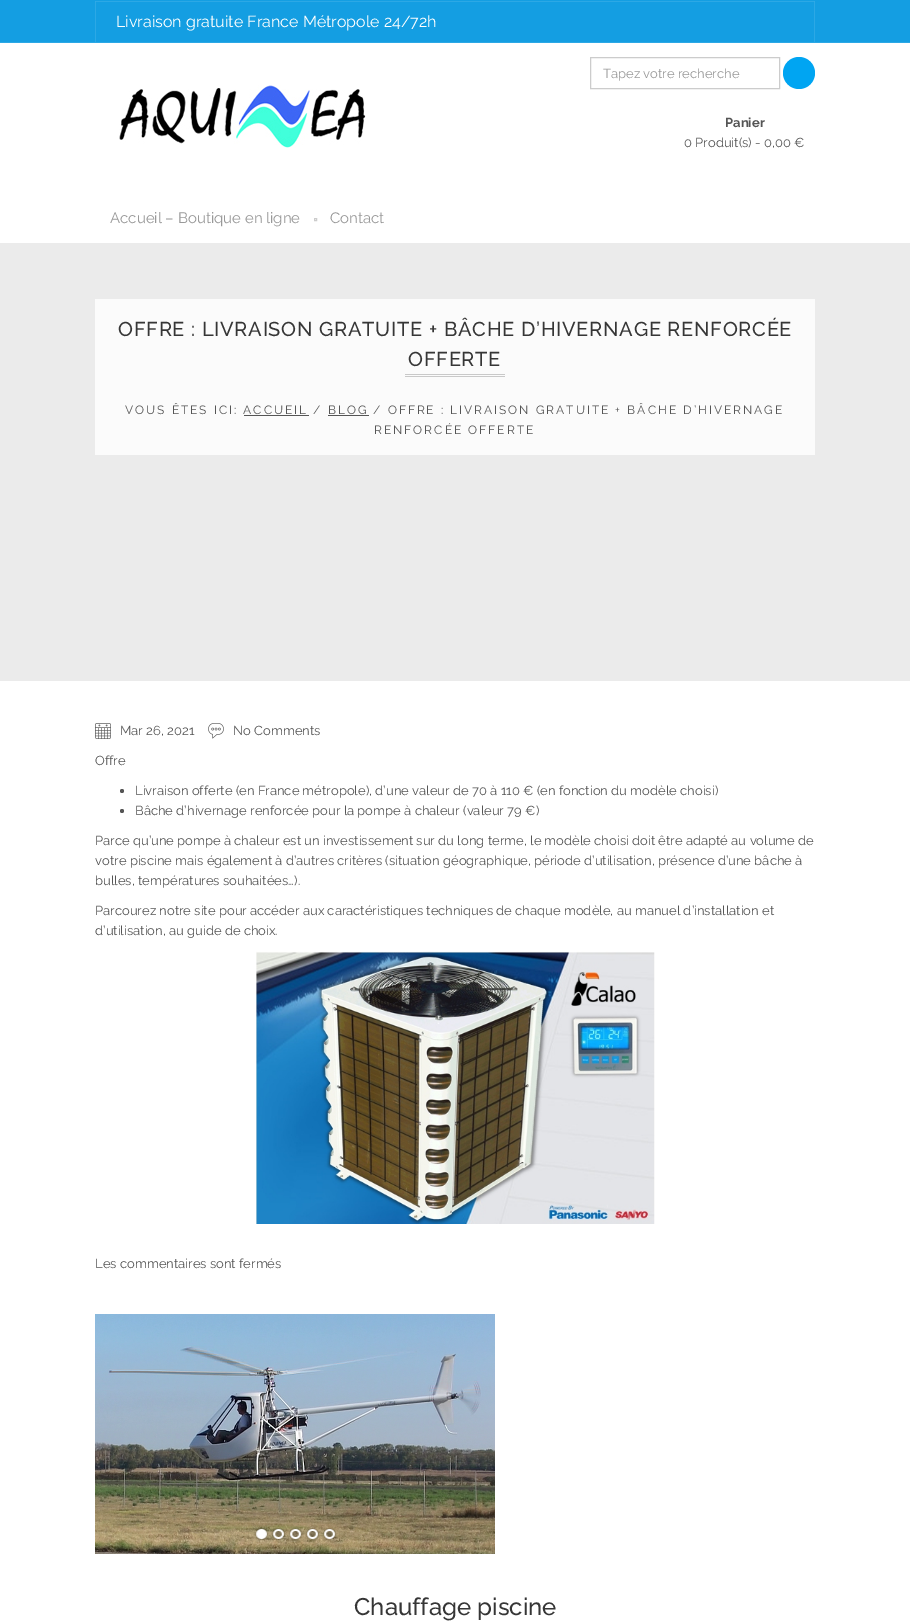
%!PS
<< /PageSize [910 1623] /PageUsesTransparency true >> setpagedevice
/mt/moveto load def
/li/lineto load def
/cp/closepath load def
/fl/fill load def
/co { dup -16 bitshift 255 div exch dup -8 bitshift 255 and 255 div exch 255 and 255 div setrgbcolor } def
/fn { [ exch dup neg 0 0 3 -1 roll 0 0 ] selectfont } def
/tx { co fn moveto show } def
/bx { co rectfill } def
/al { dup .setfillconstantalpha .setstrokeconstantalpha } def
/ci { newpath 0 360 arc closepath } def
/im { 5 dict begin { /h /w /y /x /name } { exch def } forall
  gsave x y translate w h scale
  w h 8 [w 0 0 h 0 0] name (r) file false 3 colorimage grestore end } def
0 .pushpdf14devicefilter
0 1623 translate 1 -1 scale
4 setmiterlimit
0 0 910 1623 16#FFFFFF bx
0 0 910 42 16#149EE2 bx
0 42 910 1 16#2CA8E5 bx
95 1 mt 815 1 li 814 2 li 96 2 li cp fl
0.1 al
16#FFFFFF co
815 1 mt 815 42 li 814 42 li 814 2 li cp fl
95 42 mt 95 1 li 96 2 li 96 42 li cp fl
1 al
16#CCCCCC co
590.5 57.5 189 31 rectstroke
16#00A5F2 co
799 73 16 ci fl
(media/1.raw) 119 85 247 63 im
16#CCCCCC co
314.5 218.5 2 2 rectstroke
0 243 910 438 16#EBEBEB bx
95 299 720 156 16#FBFBFB bx
405 374 100 1 16#C9C9C9 bx
405 376 100 1 16#C9C9C9 bx
244 415 65 1 16#555555 bx
328 415 41 1 16#555555 bx
(media/2.raw) 95 723 16 16 im
(media/3.raw) 208 723 16 16 im
122 791 2 ci fl
122 811 2 ci fl
(media/4.raw) 256 951 399 273 im
(media/5.raw) 95 1314 400 240 im
(media/6.raw) 254 1527 15 14 im
(media/7.raw) 271 1527 15 14 im
(media/8.raw) 288 1527 15 14 im
(media/9.raw) 305 1527 15 14 im
(media/10.raw) 322 1527 15 14 im
(Livraison gratuite France Métropole 24/72h) 116 27 /Raleway-Regular 16 16#FFFFFF tx
(Tapez votre recherche) 603 78 /Raleway-Regular 13 16#999999 tx
(Panier) 725 127 /Raleway-Bold 13 16#555555 tx
(0 Produit\(s\) - 0,00 €) 684 147 /Raleway-Regular 13 16#555555 tx
(Accueil – Boutique en ligne) 110 223 /Raleway-Regular 15 16#999999 tx
(Contact) 330 223 /Raleway-Regular 15 16#999999 tx
/Raleway-Medium 20 fn
16#363636 co
118 336 mt .75 0 (OFFRE : LIVRAISON GRATUITE + BÂCHE D’HIVERNAGE RENFORCÉE) ashow
408 366 mt .75 0 (OFFERTE) ashow
/Raleway-Regular 12 fn
16#555555 co
125 414 mt 2 0 (VOUS ÊTES ICI: ACCUEIL / BLOG / OFFRE : LIVRAISON GRATUITE + BÂCHE D’HIVERNAGE) ashow
374 434 mt 2 0 (RENFORCÉE OFFERTE) ashow
(Mar 26, 2021) 120 735 /Raleway-Regular 13 16#555555 tx
(No Comments) 233 735 /Raleway-Regular 13 16#555555 tx
(Offre) 95 765 /Raleway-Regular 13 16#555555 tx
(Livraison offerte \(en France métropole\), d’une valeur de 70 à 110 € \(en fonction du modèle choisi\)) 135 795 /Raleway-Regular 13 16#555555 tx
(Bâche d’hivernage renforcée pour la pompe à chaleur \(valeur 79 €\)) 135 815 /Raleway-Regular 13 16#555555 tx
(Parce qu’une pompe à chaleur est un investissement sur du long terme, le modèle choisi doit être adapté au volume de) 95 845 /Raleway-Regular 13 16#555555 tx
(votre piscine mais également à d’autres critères \(situation géographique, période d’utilisation, présence d’une bâche à) 95 865 /Raleway-Regular 13 16#555555 tx
(bulles, températures souhaitées…\).) 95 885 /Raleway-Regular 13 16#555555 tx
(Parcourez notre site pour accéder aux caractéristiques techniques de chaque modèle, au manuel d’installation et) 95 915 /Raleway-Regular 13 16#555555 tx
(d’utilisation, au guide de choix.) 95 935 /Raleway-Regular 13 16#555555 tx
(Les commentaires sont fermés) 95 1268 /Raleway-Regular 13 16#555555 tx
(Chauffage piscine) 354 1615 /Raleway-Medium 24 16#363636 tx
.poppdf14devicefilter showpage
